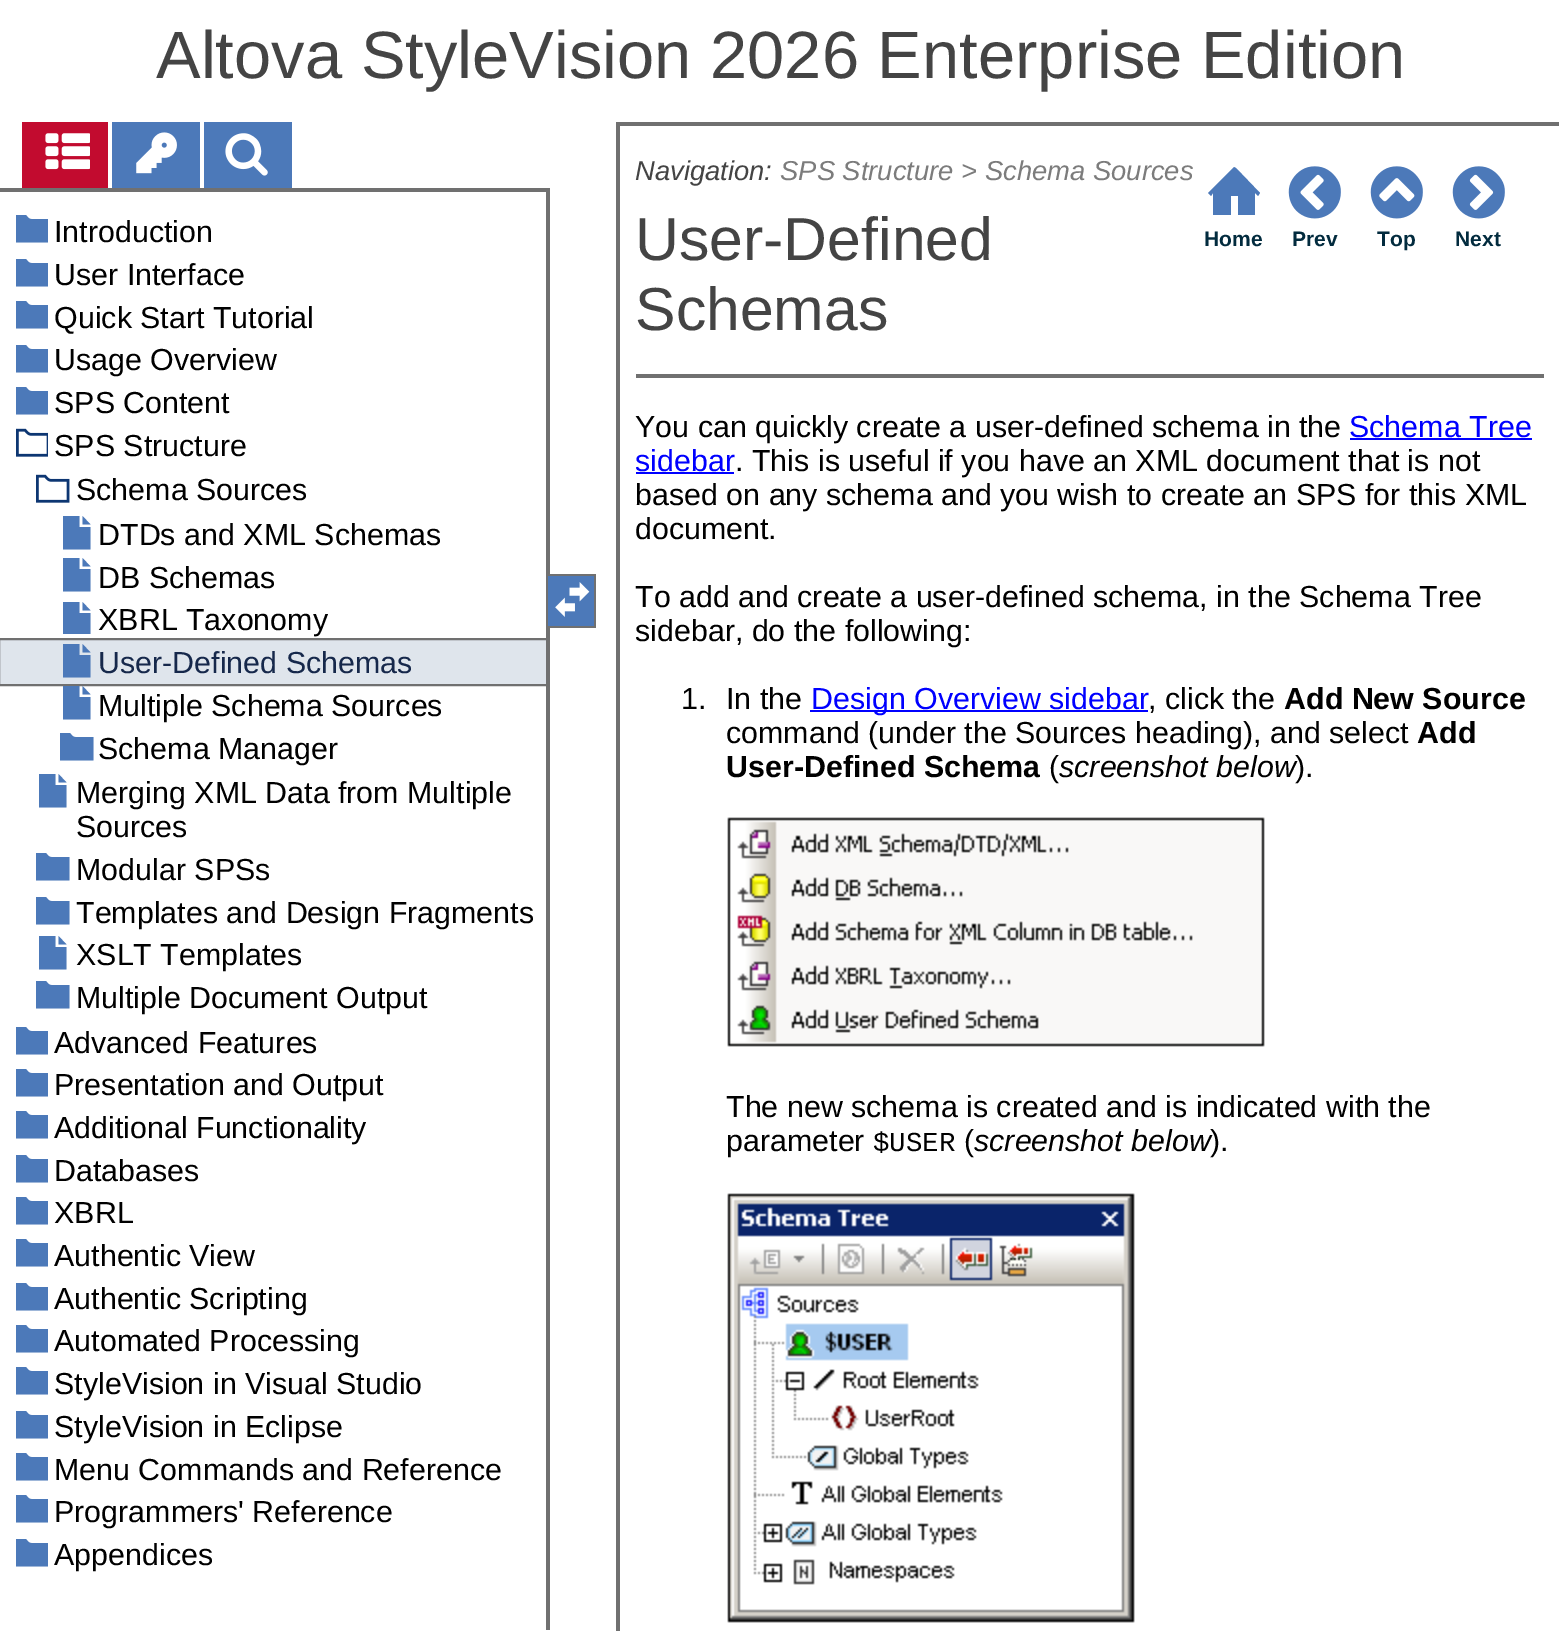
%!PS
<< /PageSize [1559 1631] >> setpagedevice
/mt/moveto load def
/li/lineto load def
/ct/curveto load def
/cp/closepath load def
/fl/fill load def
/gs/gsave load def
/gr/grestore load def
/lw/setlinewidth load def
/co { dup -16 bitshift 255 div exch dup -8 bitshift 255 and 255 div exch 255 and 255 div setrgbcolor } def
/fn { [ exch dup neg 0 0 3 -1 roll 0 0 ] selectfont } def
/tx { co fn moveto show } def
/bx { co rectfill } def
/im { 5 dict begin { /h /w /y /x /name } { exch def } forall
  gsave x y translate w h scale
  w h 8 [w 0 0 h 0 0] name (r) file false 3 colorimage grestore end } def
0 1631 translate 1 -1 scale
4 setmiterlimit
0 0 1559 1631 16#FFFFFF bx
22 122 86 66 16#C20B2F bx
112 122 88 66 16#4C79B9 bx
204 122 88 66 16#4C79B9 bx
(media/1.raw) 45 133 45 37 im
(media/2.raw) 136 132 41 42 im
(media/3.raw) 225 133 43 43 im
0 188 550 4 16#707070 bx
546 188 4 1442 16#707070 bx
gs
16 212 32 34 rectclip
16#4C79B9 co
31.5 219 mt 29 219 28 217.5 26 215 ct 16 215 li 16 242.5 li 49.5 242.5 li 49.5 219 li cp fl
gr
gs
16 256 32 34 rectclip
16#4C79B9 co
31.5 263 mt 29 263 28 261.5 26 259 ct 16 259 li 16 286.5 li 49.5 286.5 li 49.5 263 li cp fl
gr
gs
16 298 32 34 rectclip
16#4C79B9 co
31.5 305 mt 29 305 28 303.5 26 301 ct 16 301 li 16 328.5 li 49.5 328.5 li 49.5 305 li cp fl
gr
gs
16 342 32 32 rectclip
16#4C79B9 co
31.5 349 mt 29 349 28 347.5 26 345 ct 16 345 li 16 372.5 li 49.5 372.5 li 49.5 349 li cp fl
gr
gs
16 384 32 34 rectclip
16#4C79B9 co
31.5 391 mt 29 391 28 389.5 26 387 ct 16 387 li 16 414.5 li 49.5 414.5 li 49.5 391 li cp fl
gr
(media/4.raw) 16 428 32 29 im
(media/5.raw) 36 474 34 29 im
16#4C79B9 co
90.5 524.5 mt 82.5 524.5 li 82.5 516 li cp 79.5 527 mt 79.5 516 li 63 516 li 63 549.5 li 90.5 549.5 li 90.5 527 li cp fl
90.5 566.5 mt 82.5 566.5 li 82.5 558 li cp 79.5 569 mt 79.5 558 li 63 558 li 63 591.5 li 90.5 591.5 li 90.5 569 li cp fl
gs
60 602 34 32 rectclip
90.5 610.5 mt 82.5 610.5 li 82.5 602 li cp 79.5 613 mt 79.5 602 li 63 602 li 63 635.5 li 90.5 635.5 li 90.5 613 li cp fl
gr
0 640 546 44 16#DFE5EC bx
16#4C79B9 co
90.5 652.5 mt 82.5 652.5 li 82.5 644 li cp 79.5 655 mt 79.5 644 li 63 644 li 63 677.5 li 90.5 677.5 li 90.5 655 li cp fl
gs
0 510 546 260 rectclip
16#707070 co
2 lw
-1 639 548 46 rectstroke
gr
90.5 694.5 mt 82.5 694.5 li 82.5 686 li cp 79.5 697 mt 79.5 686 li 63 686 li 63 719.5 li 90.5 719.5 li 90.5 697 li cp fl
75.5 737 mt 73 737 72 735.5 70 733 ct 60 733 li 60 760.5 li 93.5 760.5 li 93.5 737 li cp fl
66.5 782.5 mt 58.5 782.5 li 58.5 774 li cp 55.5 785 mt 55.5 774 li 39 774 li 39 807.5 li 66.5 807.5 li 66.5 785 li cp fl
51.5 857 mt 49 857 48 855.5 46 853 ct 36 853 li 36 880.5 li 69.5 880.5 li 69.5 857 li cp fl
51.5 901 mt 49 901 48 899.5 46 897 ct 36 897 li 36 924.5 li 69.5 924.5 li 69.5 901 li cp fl
66.5 944.5 mt 58.5 944.5 li 58.5 936 li cp 55.5 947 mt 55.5 936 li 39 936 li 39 969.5 li 66.5 969.5 li 66.5 947 li cp fl
51.5 985 mt 49 985 48 983.5 46 981 ct 36 981 li 36 1008.5 li 69.5 1008.5 li 69.5 985 li cp fl
gs
16 1024 32 32 rectclip
31.5 1031 mt 29 1031 28 1029.5 26 1027 ct 16 1027 li 16 1054.5 li 49.5 1054.5 li 49.5 1031 li cp fl
gr
gs
16 1066 32 34 rectclip
31.5 1073 mt 29 1073 28 1071.5 26 1069 ct 16 1069 li 16 1096.5 li 49.5 1096.5 li 49.5 1073 li cp fl
gr
gs
16 1108 32 34 rectclip
31.5 1115 mt 29 1115 28 1113.5 26 1111 ct 16 1111 li 16 1138.5 li 49.5 1138.5 li 49.5 1115 li cp fl
gr
gs
16 1152 32 32 rectclip
31.5 1159 mt 29 1159 28 1157.5 26 1155 ct 16 1155 li 16 1182.5 li 49.5 1182.5 li 49.5 1159 li cp fl
gr
gs
16 1194 32 34 rectclip
31.5 1201 mt 29 1201 28 1199.5 26 1197 ct 16 1197 li 16 1224.5 li 49.5 1224.5 li 49.5 1201 li cp fl
gr
gs
16 1236 32 34 rectclip
31.5 1243 mt 29 1243 28 1241.5 26 1239 ct 16 1239 li 16 1266.5 li 49.5 1266.5 li 49.5 1243 li cp fl
gr
gs
16 1280 32 32 rectclip
31.5 1287 mt 29 1287 28 1285.5 26 1283 ct 16 1283 li 16 1310.5 li 49.5 1310.5 li 49.5 1287 li cp fl
gr
gs
16 1322 32 34 rectclip
31.5 1329 mt 29 1329 28 1327.5 26 1325 ct 16 1325 li 16 1352.5 li 49.5 1352.5 li 49.5 1329 li cp fl
gr
gs
16 1364 32 34 rectclip
31.5 1371 mt 29 1371 28 1369.5 26 1367 ct 16 1367 li 16 1394.5 li 49.5 1394.5 li 49.5 1371 li cp fl
gr
gs
16 1408 32 32 rectclip
31.5 1415 mt 29 1415 28 1413.5 26 1411 ct 16 1411 li 16 1438.5 li 49.5 1438.5 li 49.5 1415 li cp fl
gr
gs
16 1450 32 34 rectclip
31.5 1457 mt 29 1457 28 1455.5 26 1453 ct 16 1453 li 16 1480.5 li 49.5 1480.5 li 49.5 1457 li cp fl
gr
gs
16 1492 32 34 rectclip
31.5 1499 mt 29 1499 28 1497.5 26 1495 ct 16 1495 li 16 1522.5 li 49.5 1522.5 li 49.5 1499 li cp fl
gr
gs
16 1536 32 34 rectclip
31.5 1543 mt 29 1543 28 1541.5 26 1539 ct 16 1539 li 16 1566.5 li 49.5 1566.5 li 49.5 1543 li cp fl
gr
548 576 46 50 16#4C79B9 bx
548 574 48 2 16#707070 bx
594 574 2 54 16#707070 bx
548 626 48 2 16#707070 bx
(media/6.raw) 555 582 35 35 im
616 122 943 4 16#707070 bx
616 122 4 1509 16#707070 bx
16#4C79B9 co
1234 167 mt 1208 193 li 1211 196 li 1213 193 li 1213 215 li 1231 215 li 1231 196 li 1238 196 li 1238 215 li 1255 215 li 1255 193 li 1258 196 li 1260 193 li 1236 168 li cp fl
(media/7.raw) 1288 166 53 53 im
(media/8.raw) 1370 166 53 53 im
(media/9.raw) 1452 166 53 53 im
636 374 908 4 16#707070 bx
1350 438 182 2 16#0000FF bx
636 472 98 2 16#0000FF bx
810 710 338 2 16#0000FF bx
(media/10.raw) 727 817 538 230 im
(media/11.raw) 727 1193 408 430 im
(Altova StyleVision 2026 Enterprise Edition) 156 78 /LiberationSans-Regular 66.9 16#444444 tx
(Introduction) 54 242 /LiberationSans-Regular 30.4 16#000000 tx
(User Interface) 54 285 /LiberationSans-Regular 30.4 16#000000 tx
(Quick Start Tutorial) 54 328 /LiberationSans-Regular 30.4 16#000000 tx
(Usage Overview) 54 370 /LiberationSans-Regular 30.4 16#000000 tx
(SPS Content) 54 413 /LiberationSans-Regular 30.4 16#000000 tx
(SPS Structure) 54 456 /LiberationSans-Regular 30.4 16#000000 tx
(Schema Sources) 76 500 /LiberationSans-Regular 30.4 16#000000 tx
(DTDs and XML Schemas) 98 545 /LiberationSans-Regular 30.4 16#000000 tx
(DB Schemas) 98 588 /LiberationSans-Regular 30.4 16#000000 tx
(XBRL Taxonomy) 98 630 /LiberationSans-Regular 30.4 16#000000 tx
(User-Defined Schemas) 98 673 /LiberationSans-Regular 30.4 16#16284B tx
(Multiple Schema Sources) 98 716 /LiberationSans-Regular 30.4 16#000000 tx
(Schema Manager) 98 759 /LiberationSans-Regular 30.4 16#000000 tx
(Merging XML Data from Multiple) 76 803 /LiberationSans-Regular 30.4 16#000000 tx
(Sources) 76 837 /LiberationSans-Regular 30.4 16#000000 tx
(Modular SPSs) 76 880 /LiberationSans-Regular 30.4 16#000000 tx
(Templates and Design Fragments) 76 923 /LiberationSans-Regular 30.4 16#000000 tx
(XSLT Templates) 76 965 /LiberationSans-Regular 30.4 16#000000 tx
(Multiple Document Output) 76 1008 /LiberationSans-Regular 30.4 16#000000 tx
(Advanced Features) 54 1053 /LiberationSans-Regular 30.4 16#000000 tx
(Presentation and Output) 54 1095 /LiberationSans-Regular 30.4 16#000000 tx
(Additional Functionality) 54 1138 /LiberationSans-Regular 30.4 16#000000 tx
(Databases) 54 1181 /LiberationSans-Regular 30.4 16#000000 tx
(XBRL) 54 1223 /LiberationSans-Regular 30.4 16#000000 tx
(Authentic View) 54 1266 /LiberationSans-Regular 30.4 16#000000 tx
(Authentic Scripting) 54 1309 /LiberationSans-Regular 30.4 16#000000 tx
(Automated Processing) 54 1351 /LiberationSans-Regular 30.4 16#000000 tx
(StyleVision in Visual Studio) 54 1394 /LiberationSans-Regular 30.4 16#000000 tx
(StyleVision in Eclipse) 54 1437 /LiberationSans-Regular 30.4 16#000000 tx
(Menu Commands and Reference) 54 1480 /LiberationSans-Regular 30.4 16#000000 tx
(Programmers' Reference) 54 1522 /LiberationSans-Regular 30.4 16#000000 tx
(Appendices) 54 1565 /LiberationSans-Regular 30.4 16#000000 tx
(Navigation:) 635 180 /LiberationSans-Italic 27.4 16#444444 tx
(SPS Structure > Schema Sources) 780 180 /LiberationSans-Italic 27.4 16#7C7C7C tx
(User-Defined) 635 260 /LiberationSans-Regular 60.75 16#444444 tx
(Schemas) 635 330 /LiberationSans-Regular 60.75 16#444444 tx
(Home) 1204 246 /LiberationSans-Bold 21 16#022B3E tx
(Prev) 1292 246 /LiberationSans-Bold 21 16#022B3E tx
(Top) 1377 246 /LiberationSans-Bold 21 16#022B3E tx
(Next) 1455 246 /LiberationSans-Bold 21 16#022B3E tx
(You can quickly create a user-defined schema in the) 635 437 /LiberationSans-Regular 30.4 16#000000 tx
(Schema Tree) 1349 437 /LiberationSans-Regular 30.4 16#0000FF tx
(sidebar) 635 471 /LiberationSans-Regular 30.4 16#0000FF tx
(. This is useful if you have an XML document that is not) 735 471 /LiberationSans-Regular 30.4 16#000000 tx
(based on any schema and you wish to create an SPS for this XML) 635 505 /LiberationSans-Regular 30.4 16#000000 tx
(document.) 635 539 /LiberationSans-Regular 30.4 16#000000 tx
(To add and create a user-defined schema, in the Schema Tree) 635 607 /LiberationSans-Regular 30.4 16#000000 tx
(sidebar, do the following:) 635 641 /LiberationSans-Regular 30.4 16#000000 tx
(1.) 681 709 /LiberationSans-Regular 30.4 16#000000 tx
(In the) 726 709 /LiberationSans-Regular 30.4 16#000000 tx
(Design Overview sidebar) 811 709 /LiberationSans-Regular 30.4 16#0000FF tx
(, click the) 1148 709 /LiberationSans-Regular 30.4 16#000000 tx
(Add New Source) 1284 709 /LiberationSans-Bold 30.4 16#000000 tx
(command \(under the Sources heading\), and select) 726 743 /LiberationSans-Regular 30.4 16#000000 tx
(Add) 1417 743 /LiberationSans-Bold 30.4 16#000000 tx
(User-Defined Schema) 726 777 /LiberationSans-Bold 30.4 16#000000 tx
(\() 1049 777 /LiberationSans-Regular 30.4 16#000000 tx
(screenshot below) 1059 777 /LiberationSans-Italic 30.4 16#000000 tx
(\).) 1295 777 /LiberationSans-Regular 30.4 16#000000 tx
(The new schema is created and is indicated with the) 726 1117 /LiberationSans-Regular 30.4 16#000000 tx
(parameter) 726 1151 /LiberationSans-Regular 30.4 16#000000 tx
($USER) 873 1151 /LiberationMono-Regular 27.4 16#000000 tx
(\() 964 1151 /LiberationSans-Regular 30.4 16#000000 tx
(screenshot below) 974 1151 /LiberationSans-Italic 30.4 16#000000 tx
(\).) 1210 1151 /LiberationSans-Regular 30.4 16#000000 tx
showpage
